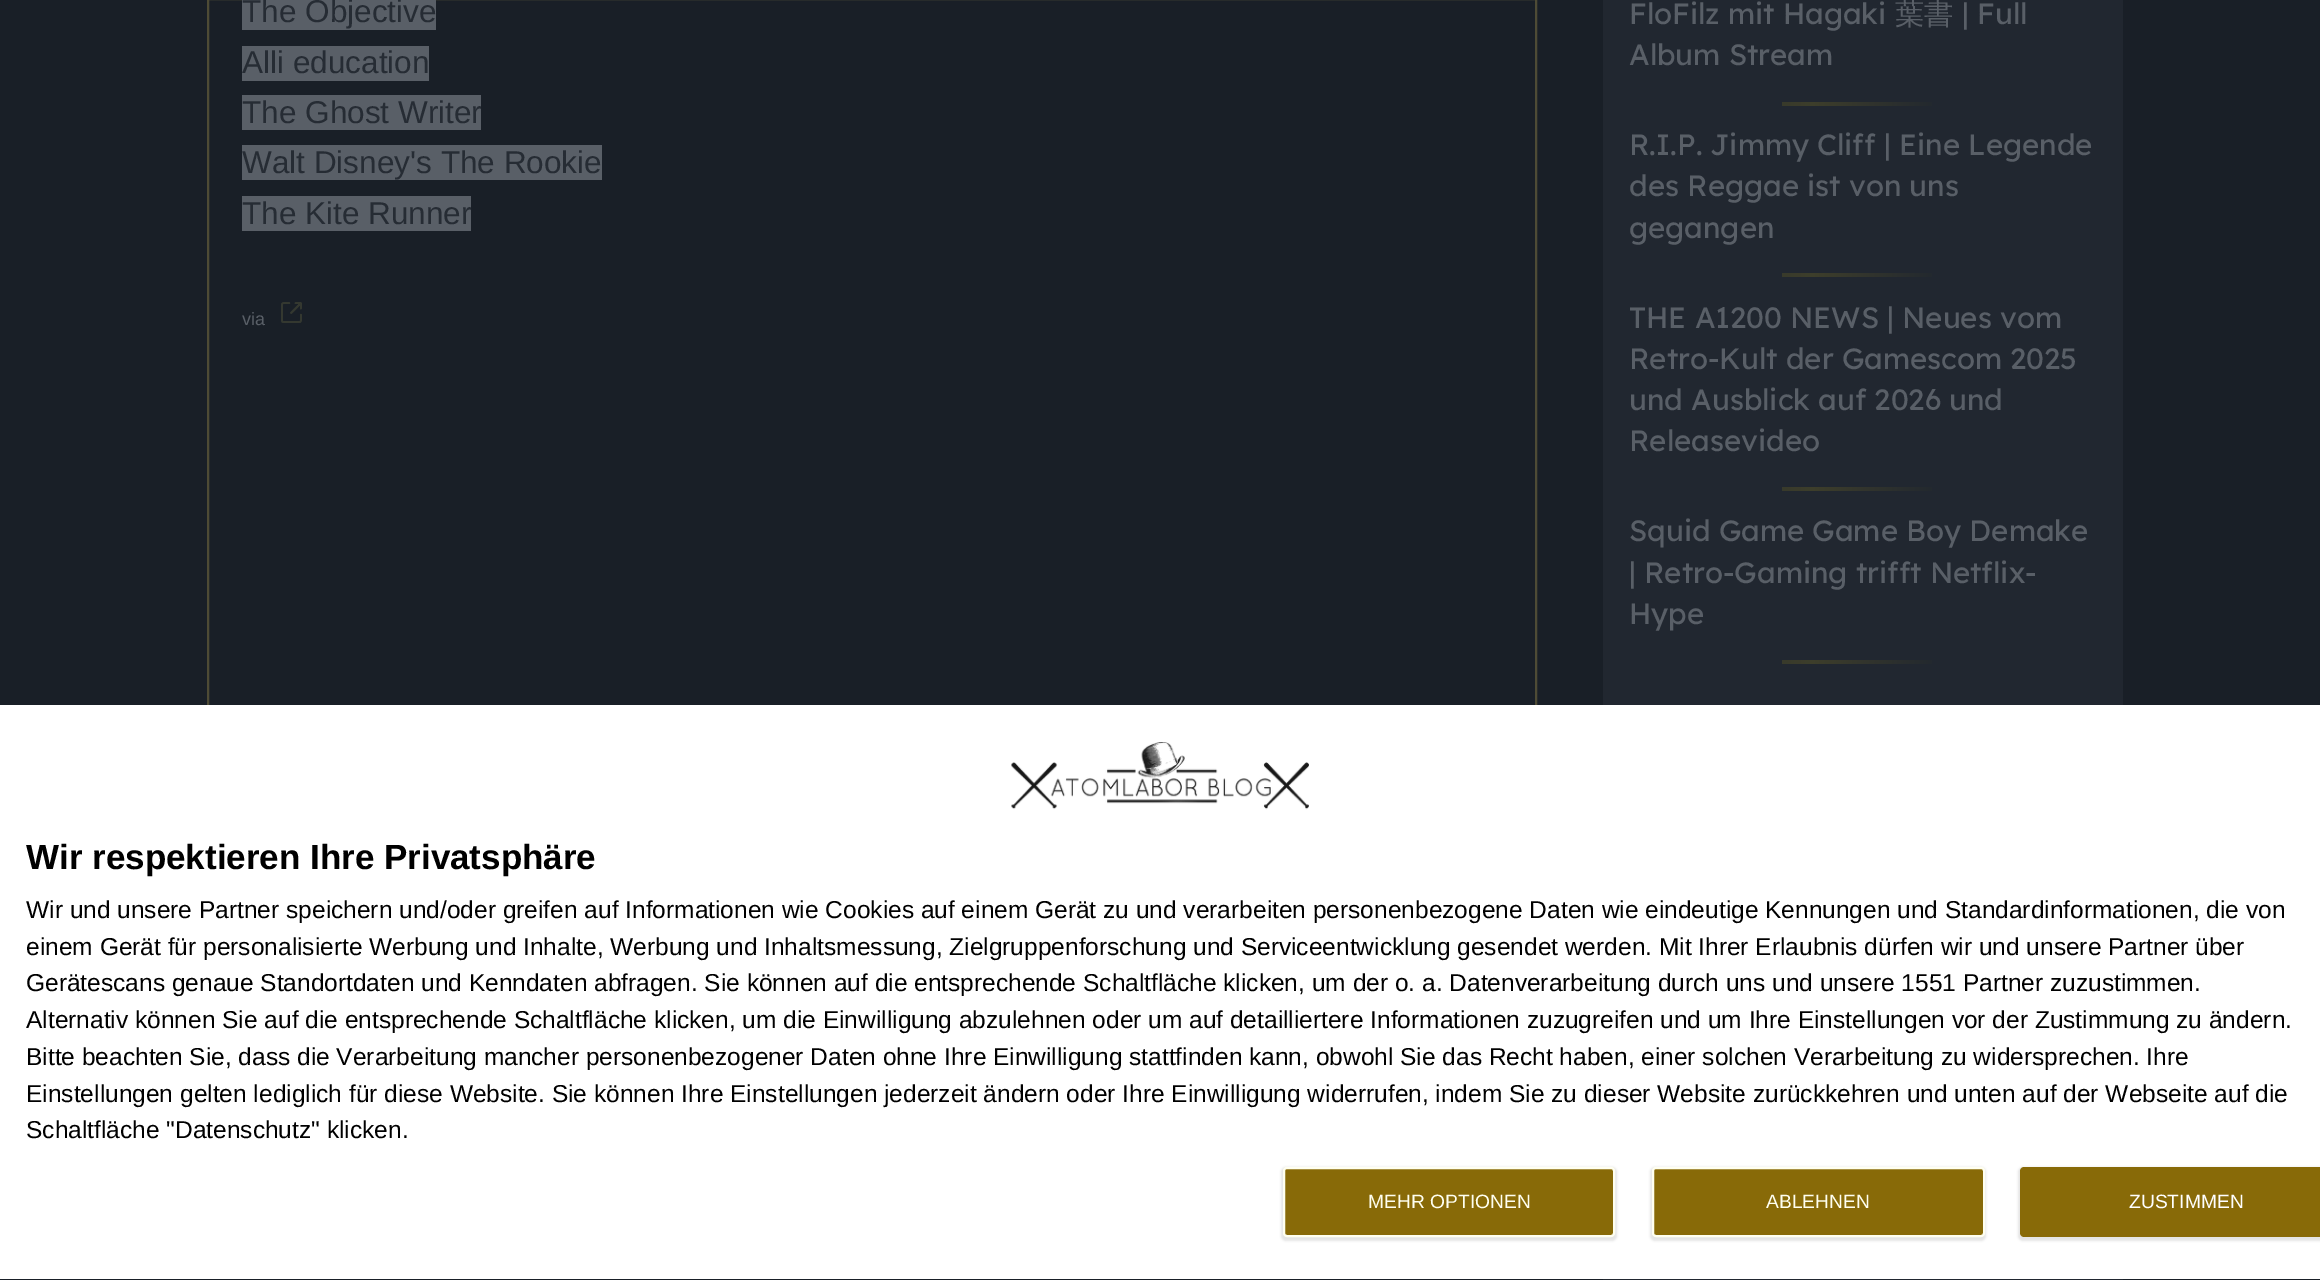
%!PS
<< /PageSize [2320 1280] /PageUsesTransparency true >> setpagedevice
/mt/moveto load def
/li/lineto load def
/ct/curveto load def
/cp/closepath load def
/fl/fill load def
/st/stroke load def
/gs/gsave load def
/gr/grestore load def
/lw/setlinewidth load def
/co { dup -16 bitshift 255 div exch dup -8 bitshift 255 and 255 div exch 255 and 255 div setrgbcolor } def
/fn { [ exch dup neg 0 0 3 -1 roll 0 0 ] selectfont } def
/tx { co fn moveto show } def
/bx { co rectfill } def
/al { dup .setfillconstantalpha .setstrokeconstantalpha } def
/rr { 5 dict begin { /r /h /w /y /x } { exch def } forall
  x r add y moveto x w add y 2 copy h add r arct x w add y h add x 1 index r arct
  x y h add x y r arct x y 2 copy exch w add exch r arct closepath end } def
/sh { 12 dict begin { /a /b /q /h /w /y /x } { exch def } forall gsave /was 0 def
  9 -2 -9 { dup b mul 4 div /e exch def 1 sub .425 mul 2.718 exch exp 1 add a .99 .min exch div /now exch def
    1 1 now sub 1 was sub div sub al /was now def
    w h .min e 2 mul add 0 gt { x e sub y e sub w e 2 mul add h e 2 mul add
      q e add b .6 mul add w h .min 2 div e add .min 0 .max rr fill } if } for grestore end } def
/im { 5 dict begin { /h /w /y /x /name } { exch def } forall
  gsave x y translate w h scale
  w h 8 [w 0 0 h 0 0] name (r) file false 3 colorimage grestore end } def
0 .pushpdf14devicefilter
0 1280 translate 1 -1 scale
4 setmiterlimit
0 0 2320 1280 16#191F27 bx
16#4E4B35 co
2 lw
208 -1 1328 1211 rectstroke
242 0 194 30 16#595F67 bx
242 46 187 35 16#595F67 bx
242 95 239 35 16#595F67 bx
242 145 360 35 16#595F67 bx
242 196 229 35 16#595F67 bx
(media/1.raw) 281 302 21 21 im
1603 0 520 1280 16#212730 bx
gs 1782 102 mt 1932 102 li 1932 106 li 1782 106 li cp clip newpath
<< /ShadingType 2 /ColorSpace /DeviceRGB /Coords [1619 103 1944 103] /Extend [true true] /Function << /FunctionType 3 /Domain [0 1] /Functions [<< /FunctionType 2 /Domain [0 1] /C0 [.129 .153 .188] /C1 [.239 .243 .169] /N 1 >> << /FunctionType 2 /Domain [0 1] /C0 [.239 .243 .169] /C1 [.129 .153 .188] /N 1 >>] /Bounds [.6] /Encode [0 1 0 1] >> >> shfill gr
gs 1782 273 mt 1932 273 li 1932 277 li 1782 277 li cp clip newpath
<< /ShadingType 2 /ColorSpace /DeviceRGB /Coords [1619 275 1944 275] /Extend [true true] /Function << /FunctionType 3 /Domain [0 1] /Functions [<< /FunctionType 2 /Domain [0 1] /C0 [.129 .153 .188] /C1 [.239 .243 .169] /N 1 >> << /FunctionType 2 /Domain [0 1] /C0 [.239 .243 .169] /C1 [.129 .153 .188] /N 1 >>] /Bounds [.6] /Encode [0 1 0 1] >> >> shfill gr
gs 1782 487 mt 1932 487 li 1932 491 li 1782 491 li cp clip newpath
<< /ShadingType 2 /ColorSpace /DeviceRGB /Coords [1619 488 1944 488] /Extend [true true] /Function << /FunctionType 3 /Domain [0 1] /Functions [<< /FunctionType 2 /Domain [0 1] /C0 [.129 .153 .188] /C1 [.239 .243 .169] /N 1 >> << /FunctionType 2 /Domain [0 1] /C0 [.239 .243 .169] /C1 [.129 .153 .188] /N 1 >>] /Bounds [.6] /Encode [0 1 0 1] >> >> shfill gr
gs 1782 660 mt 1932 660 li 1932 664 li 1782 664 li cp clip newpath
<< /ShadingType 2 /ColorSpace /DeviceRGB /Coords [1619 662 1944 662] /Extend [true true] /Function << /FunctionType 3 /Domain [0 1] /Functions [<< /FunctionType 2 /Domain [0 1] /C0 [.129 .153 .188] /C1 [.239 .243 .169] /N 1 >> << /FunctionType 2 /Domain [0 1] /C0 [.239 .243 .169] /C1 [.129 .153 .188] /N 1 >>] /Bounds [.6] /Encode [0 1 0 1] >> >> shfill gr
0 705 2320 574 16#FFFFFF bx
(media/2.raw) 1011 742 298 68 im
16#000000 co
1281 1167 336 74 5 1 .1 sh
16#886A08 co
1284 1168 330 68 3 rr gs fl gr
16#FFFFF0 co
st
16#000000 co
1650 1167 336 74 5 1 .1 sh
16#886A08 co
1653 1168 331 68 3 rr gs fl gr
16#FFFFF0 co
st
16#000000 co
2018 1167 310 74 5 1 .1 sh
16#886A08 co
2024 1167 mt 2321 1167 li 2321 1237 li 2024 1237 li 2022 1237 2020 1235 2020 1233 ct 2020 1171 li 2020 1169 2022 1167 2024 1167 ct cp fl
(The Objective) 242 22 /LiberationSans-Regular 31.5 16#262C34 tx
(Alli education) 242 73 /LiberationSans-Regular 31.5 16#262C34 tx
(The Ghost Writer) 242 123 /LiberationSans-Regular 31.5 16#262C34 tx
(Walt Disney's The Rookie) 242 173 /LiberationSans-Regular 31.5 16#262C34 tx
(The Kite Runner) 242 224 /LiberationSans-Regular 31.5 16#262C34 tx
(via) 242 325 /LiberationSans-Regular 18 16#595F67 tx
(FloFilz mit Hagaki) 1629 24 /Lexend-Regular 29.4 16#595F67 tx
(葉書) 1895 24 /WenQuanYiZenHei-Medium 29.4 16#595F67 tx
(| Full) 1962 24 /Lexend-Regular 29.4 16#595F67 tx
(Album Stream) 1629 65 /Lexend-Regular 29.4 16#595F67 tx
(R.I.P. Jimmy Cliff | Eine Legende) 1629 155 /Lexend-Regular 29.4 16#595F67 tx
(des Reggae ist von uns) 1629 196 /Lexend-Regular 29.4 16#595F67 tx
(gegangen) 1629 238 /Lexend-Regular 29.4 16#595F67 tx
(THE A1200 NEWS | Neues vom) 1629 328 /Lexend-Regular 29.4 16#595F67 tx
(Retro-Kult der Gamescom 2025) 1629 369 /Lexend-Regular 29.4 16#595F67 tx
(und Ausblick auf 2026 und) 1629 410 /Lexend-Regular 29.4 16#595F67 tx
(Releasevideo) 1629 451 /Lexend-Regular 29.4 16#595F67 tx
(Squid Game Game Boy Demake) 1629 541 /Lexend-Regular 29.4 16#595F67 tx
(| Retro-Gaming trifft Netflix-) 1629 583 /Lexend-Regular 29.4 16#595F67 tx
(Hype) 1629 624 /Lexend-Regular 29.4 16#595F67 tx
(Wir respektieren Ihre Privatsphäre) 26 869 /LiberationSans-Bold 35 16#000000 tx
(Wir und unsere Partner speichern und/oder greifen auf Informationen wie Cookies auf einem Gerät zu und verarbeiten personenbezogene Daten wie eindeutige Kennungen und Standardinformationen, die von) 26 918 /LiberationSans-Regular 24.5 16#000000 tx
(einem Gerät für personalisierte Werbung und Inhalte, Werbung und Inhaltsmessung, Zielgruppenforschung und Serviceentwicklung gesendet werden. Mit Ihrer Erlaubnis dürfen wir und unsere Partner über) 26 955 /LiberationSans-Regular 24.5 16#000000 tx
(Gerätescans genaue Standortdaten und Kenndaten abfragen. Sie können auf die entsprechende Schaltfläche klicken, um der o. a. Datenverarbeitung durch uns und unsere 1551 Partner zuzustimmen.) 26 991 /LiberationSans-Regular 24.5 16#000000 tx
(Alternativ können Sie auf die entsprechende Schaltfläche klicken, um die Einwilligung abzulehnen oder um auf detailliertere Informationen zuzugreifen und um Ihre Einstellungen vor der Zustimmung zu ändern.) 26 1028 /LiberationSans-Regular 24.5 16#000000 tx
(Bitte beachten Sie, dass die Verarbeitung mancher personenbezogener Daten ohne Ihre Einwilligung stattfinden kann, obwohl Sie das Recht haben, einer solchen Verarbeitung zu widersprechen. Ihre) 26 1065 /LiberationSans-Regular 24.5 16#000000 tx
(Einstellungen gelten lediglich für diese Website. Sie können Ihre Einstellungen jederzeit ändern oder Ihre Einwilligung widerrufen, indem Sie zu dieser Website zurückkehren und unten auf der Webseite auf die) 26 1102 /LiberationSans-Regular 24.5 16#000000 tx
(Schaltfläche "Datenschutz" klicken.) 26 1138 /LiberationSans-Regular 24.5 16#000000 tx
(MEHR OPTIONEN) 1368 1208 /LiberationSans-Regular 19.25 16#FFFFF0 tx
(ABLEHNEN) 1766 1208 /LiberationSans-Regular 19.25 16#FFFFF0 tx
(ZUSTIMMEN) 2129 1208 /LiberationSans-Regular 19.25 16#FFFFFF tx
.poppdf14devicefilter showpage
